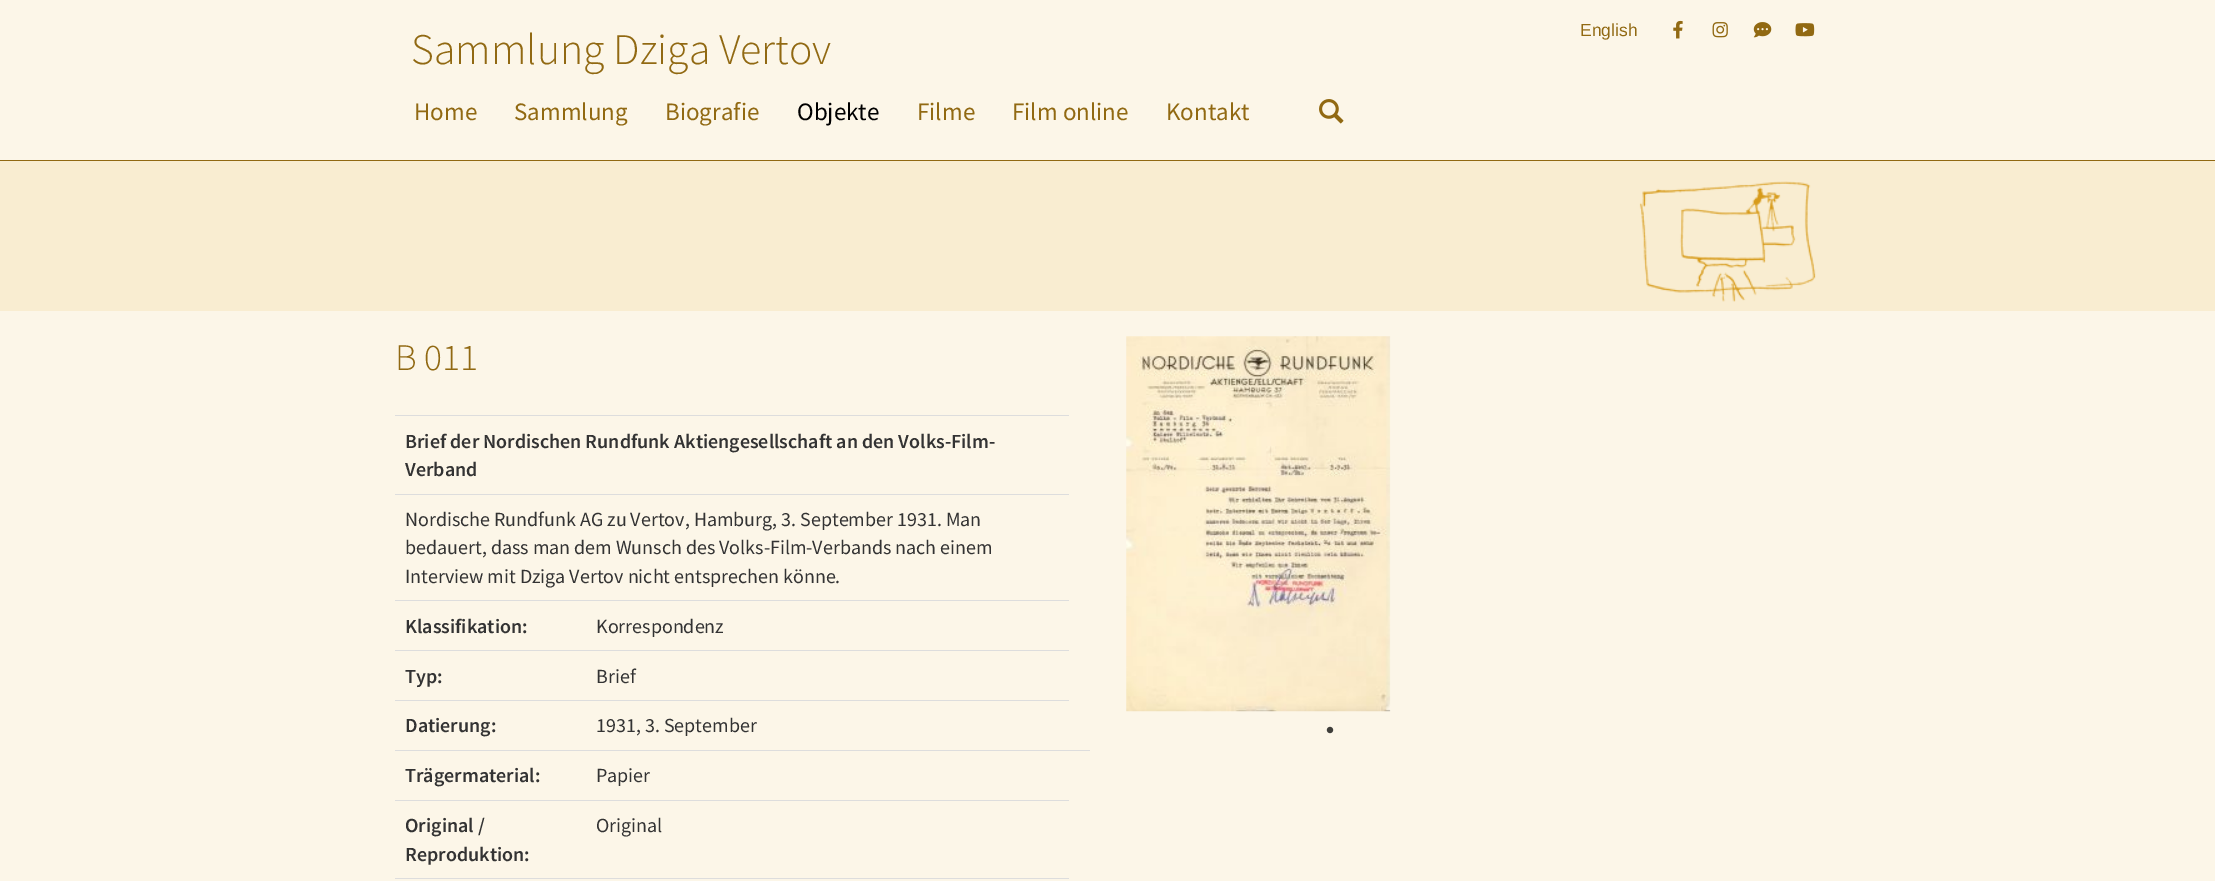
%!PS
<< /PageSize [2215 881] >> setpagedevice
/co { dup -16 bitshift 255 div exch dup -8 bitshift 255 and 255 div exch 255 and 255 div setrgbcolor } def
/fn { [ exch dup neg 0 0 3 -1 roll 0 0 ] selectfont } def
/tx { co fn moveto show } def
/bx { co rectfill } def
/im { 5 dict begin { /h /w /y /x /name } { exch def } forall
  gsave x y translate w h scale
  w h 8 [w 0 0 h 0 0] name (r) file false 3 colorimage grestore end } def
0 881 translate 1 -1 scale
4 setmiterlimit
0 0 2215 881 16#FCF6E8 bx
0 160 2215 1 16#916912 bx
(media/1.raw) 1673 20 10 19 im
(media/2.raw) 1712 22 16 16 im
(media/3.raw) 1753 22 19 16 im
(media/4.raw) 1795 23 20 14 im
(media/5.raw) 1319 99 25 25 im
0 161 2215 150 16#F9EDD1 bx
(media/6.raw) 1639 181 177 121 im
395 415 674 1 16#DDDDDD bx
395 494 674 1 16#DDDDDD bx
395 600 674 1 16#DDDDDD bx
395 650 674 1 16#DDDDDD bx
395 700 674 1 16#DDDDDD bx
395 750 695 1 16#DDDDDD bx
395 800 674 1 16#DDDDDD bx
395 878 674 1 16#DDDDDD bx
(media/7.raw) 1126 336 265 376 im
(media/8.raw) 1326 726 8 8 im
(Sammlung Dziga Vertov) 411 64 /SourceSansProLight-Light 43.75 16#916912 tx
(English) 1580 36 /LiberationSans-Regular 17.5 16#916912 tx
(Home) 414 120 /SourceSansPro-Regular 25 16#916912 tx
(Sammlung) 514 120 /SourceSansPro-Regular 25 16#916912 tx
(Biografie) 665 120 /SourceSansPro-Regular 25 16#916912 tx
(Objekte) 797 120 /SourceSansPro-Regular 25 16#000000 tx
(Filme) 917 120 /SourceSansPro-Regular 25 16#916912 tx
(Film online) 1012 120 /SourceSansPro-Regular 25 16#916912 tx
(Kontakt) 1166 120 /SourceSansPro-Regular 25 16#916912 tx
(B 011) 395 370 /SourceSansProLight-Light 37.5 16#916912 tx
(Brief der Nordischen Rundfunk Aktiengesellschaft an den Volks-Film-) 405 448 /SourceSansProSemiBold-SemiBold 20 16#333333 tx
(Verband) 405 476 /SourceSansProSemiBold-SemiBold 20 16#333333 tx
(Nordische Rundfunk AG zu Vertov, Hamburg, 3. September 1931. Man) 405 526 /SourceSansPro-Regular 20 16#333333 tx
(bedauert, dass man dem Wunsch des Volks-Film-Verbands nach einem) 405 554 /SourceSansPro-Regular 20 16#333333 tx
(Interview mit Dziga Vertov nicht entsprechen könne.) 405 583 /SourceSansPro-Regular 20 16#333333 tx
(Klassifikation:) 405 633 /SourceSansProSemiBold-SemiBold 20 16#333333 tx
(Korrespondenz) 596 633 /SourceSansPro-Regular 20 16#333333 tx
(Typ:) 405 683 /SourceSansProSemiBold-SemiBold 20 16#333333 tx
(Brief) 596 683 /SourceSansPro-Regular 20 16#333333 tx
(Datierung:) 405 732 /SourceSansProSemiBold-SemiBold 20 16#333333 tx
(1931, 3. September) 596 732 /SourceSansPro-Regular 20 16#333333 tx
(Trägermaterial:) 405 782 /SourceSansProSemiBold-SemiBold 20 16#333333 tx
(Papier) 596 782 /SourceSansPro-Regular 20 16#333333 tx
(Original /) 405 832 /SourceSansProSemiBold-SemiBold 20 16#333333 tx
(Reproduktion:) 405 861 /SourceSansProSemiBold-SemiBold 20 16#333333 tx
(Original) 596 832 /SourceSansPro-Regular 20 16#333333 tx
showpage
